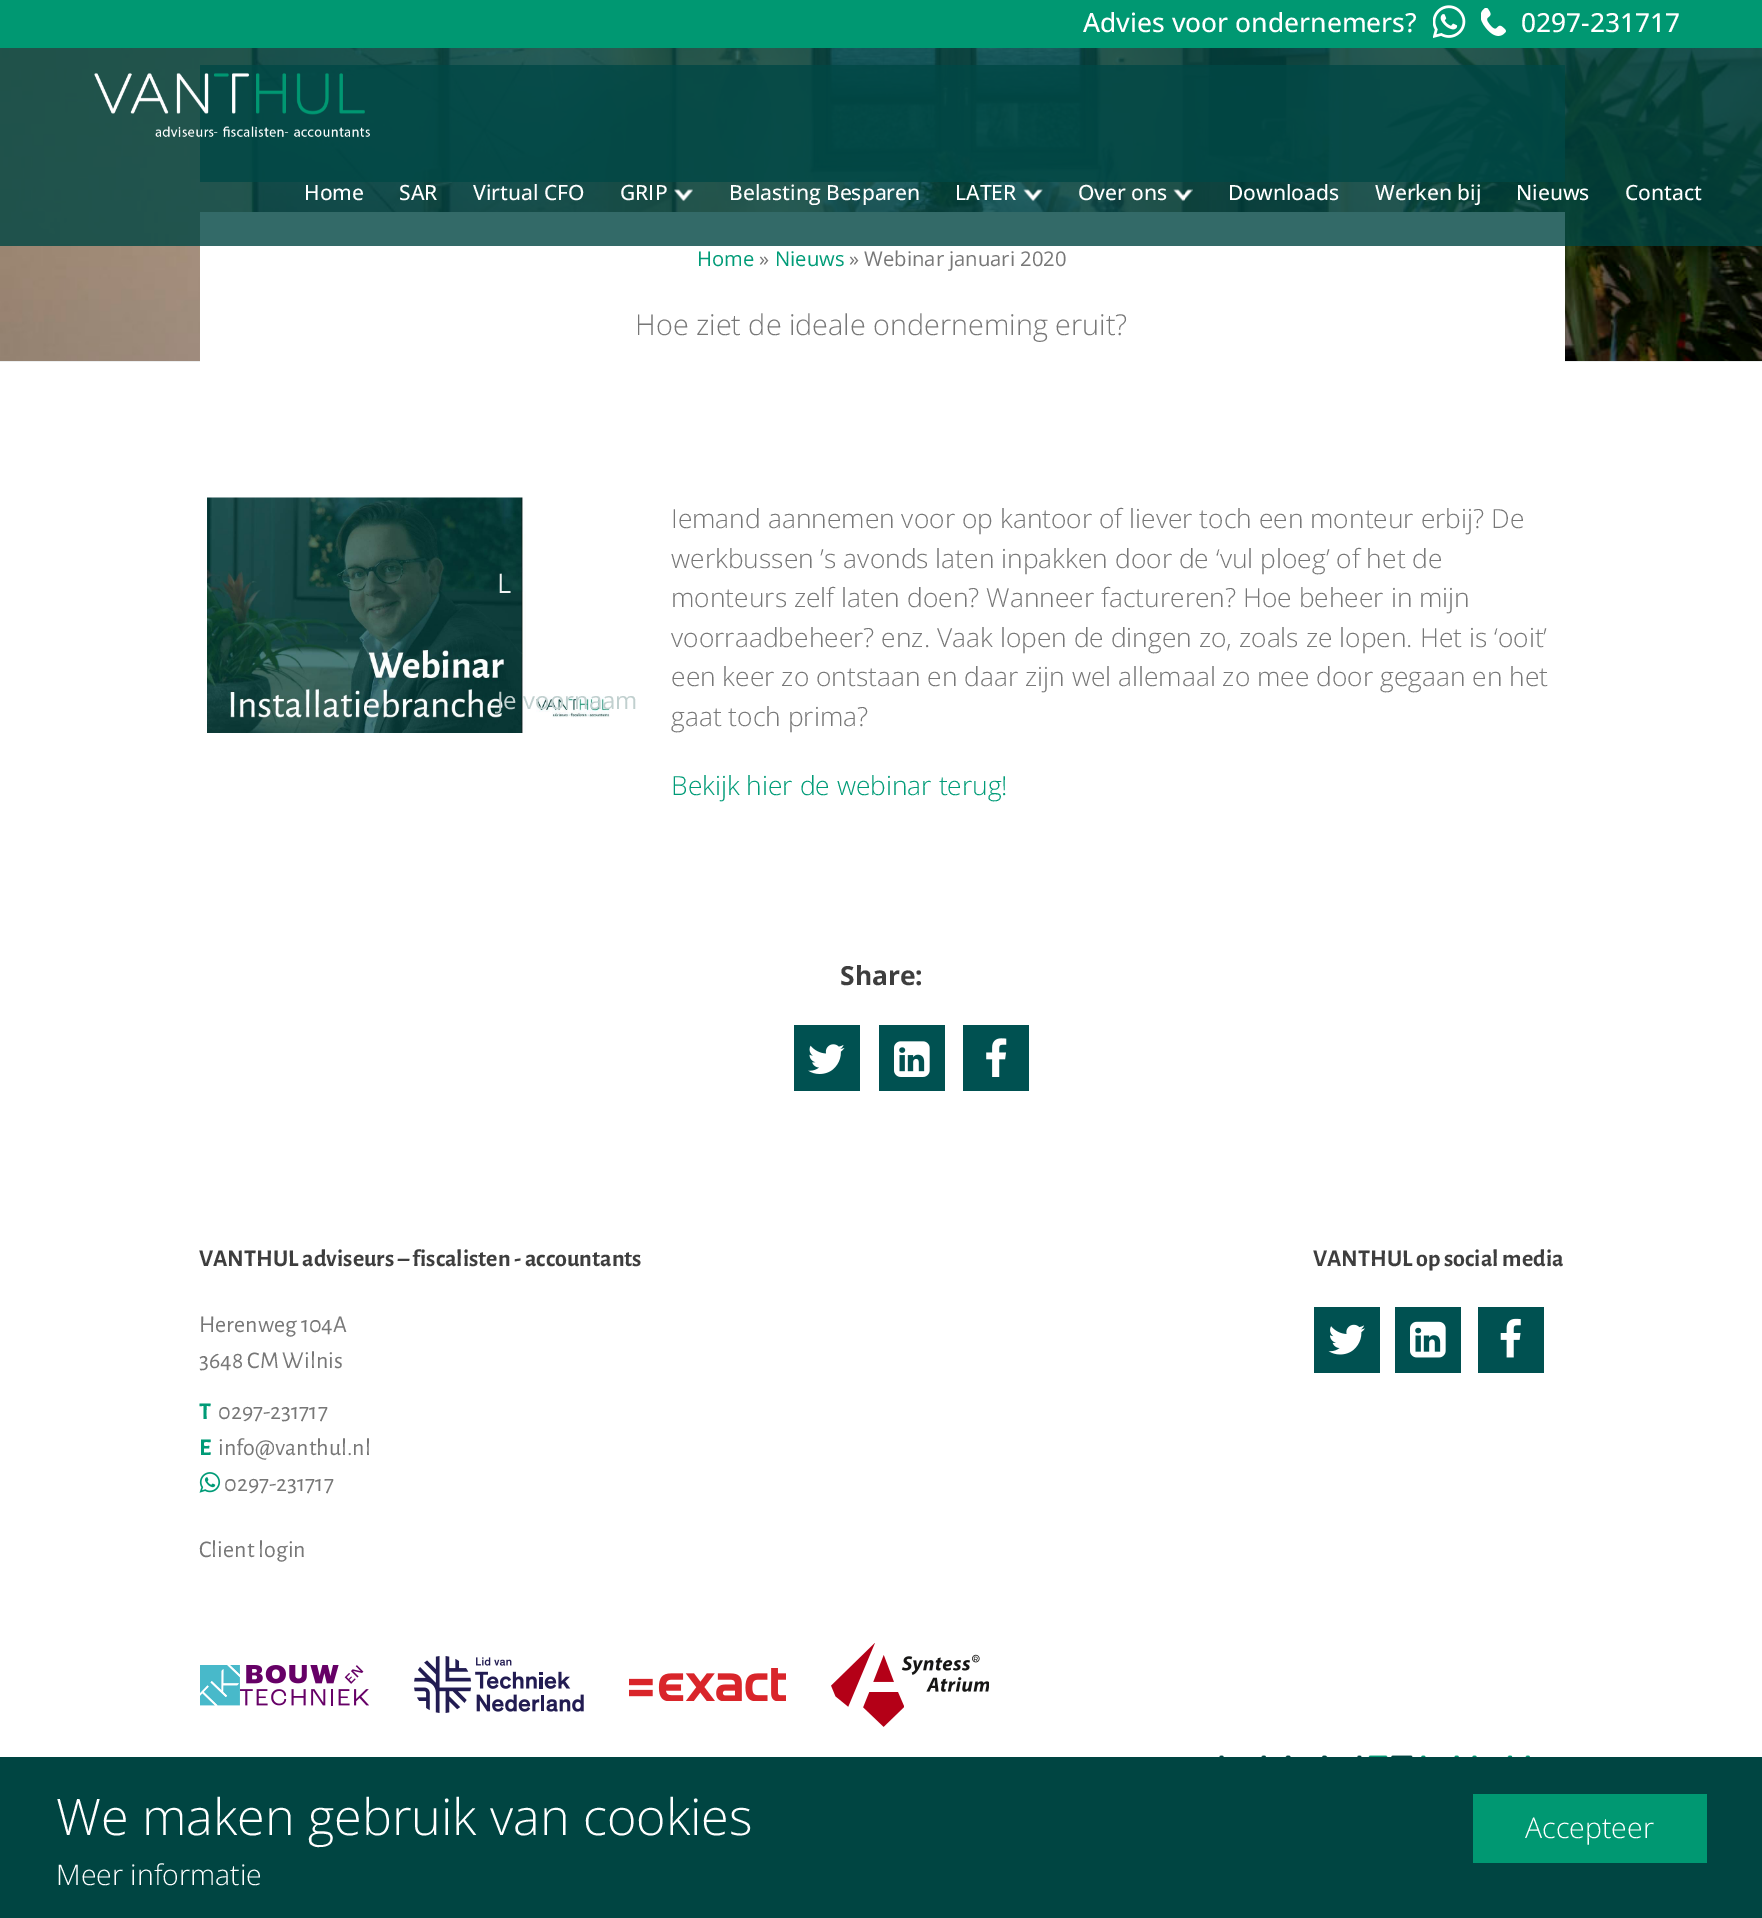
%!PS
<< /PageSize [1762 1918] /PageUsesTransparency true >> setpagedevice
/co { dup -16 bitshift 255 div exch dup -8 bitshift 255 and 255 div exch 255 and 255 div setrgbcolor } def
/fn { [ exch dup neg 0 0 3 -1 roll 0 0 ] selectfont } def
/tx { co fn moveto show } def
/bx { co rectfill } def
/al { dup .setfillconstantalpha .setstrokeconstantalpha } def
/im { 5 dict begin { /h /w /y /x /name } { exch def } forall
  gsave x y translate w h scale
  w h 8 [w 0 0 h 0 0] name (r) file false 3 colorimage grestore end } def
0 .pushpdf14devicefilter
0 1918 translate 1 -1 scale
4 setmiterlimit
0 0 1762 1918 16#FFFFFF bx
(media/7.raw) 0 48 1762 313 im
0.8 al
200 65 1365 117 16#005151 bx
1 al
0 361 1762 1 16#ECEEEF bx
200 212 1365 150 16#FFFFFF bx
0.8 al
0 48 1762 198 16#004542 bx
1 al
0 0 1762 48 16#009872 bx
(media/1.raw) 1433 5 33 33 im
(media/2.raw) 1481 8 25 28 im
(media/3.raw) 94 73 276 64 im
(media/4.raw) 674 189 19 13 im
(media/5.raw) 1023 189 20 13 im
(media/6.raw) 1173 189 20 13 im
(media/8.raw) 207 497 403 236 im
794 1025 66 66 16#005151 bx
(media/9.raw) 808 1044 37 30 im
879 1025 66 66 16#005151 bx
(media/10.raw) 894 1041 36 36 im
963 1025 66 66 16#005151 bx
(media/11.raw) 986 1038 21 39 im
(media/12.raw) 199 1472 22 21 im
1314 1307 66 66 16#005151 bx
(media/13.raw) 1328 1324 37 31 im
1395 1307 66 66 16#005151 bx
(media/14.raw) 1410 1321 36 37 im
1478 1307 66 66 16#005151 bx
(media/15.raw) 1500 1318 21 40 im
(media/16.raw) 200 1665 169 41 im
(media/17.raw) 414 1656 170 57 im
(media/18.raw) 629 1668 157 33 im
(media/19.raw) 831 1643 158 84 im
(media/20.raw) 1219 1755 311 2 im
0 1757 1762 161 16#004542 bx
1473 1794 234 69 16#009872 bx
(Advies voor ondernemers?) 1083 32 /OpenSans-Medium 26.4 16#FFFFFF tx
(0297-231717) 1521 32 /OpenSans-Medium 26.4 16#FFFFFF tx
(Home) 304 200 /OpenSans-Medium 21 16#FFFFFF tx
(SAR) 399 200 /OpenSans-Medium 21 16#FFFFFF tx
(Virtual CFO) 473 200 /OpenSans-Medium 21 16#FFFFFF tx
(GRIP) 620 200 /OpenSans-Medium 21 16#FFFFFF tx
(Belasting Besparen) 729 200 /OpenSans-Medium 21 16#FFFFFF tx
(LATER) 955 200 /OpenSans-Medium 21 16#FFFFFF tx
(Over ons) 1078 200 /OpenSans-Medium 21 16#FFFFFF tx
(Downloads) 1228 200 /OpenSans-Medium 21 16#FFFFFF tx
(Werken bij) 1375 200 /OpenSans-Medium 21 16#FFFFFF tx
(Nieuws) 1516 200 /OpenSans-Medium 21 16#FFFFFF tx
(Contact) 1625 200 /OpenSans-Medium 21 16#FFFFFF tx
(L) 497 593 /OpenSans-Regular 27 16#F2F4F4 tx
(Je voornaam) 497 709 /OpenSans-Regular 24 16#C1D0CF tx
(Home) 697 266 /OpenSans-Regular 20.25 16#009B77 tx
(») 759 266 /OpenSans-Regular 20.25 16#777777 tx
(Nieuws) 775 266 /OpenSans-Regular 20.25 16#009B77 tx
(» Webinar januari 2020) 849 266 /OpenSans-Regular 20.25 16#777777 tx
(Hoe ziet de ideale onderneming eruit?) 635 335 /OpenSans-Light 28.75 16#777777 tx
(Iemand aannemen voor op kantoor of liever toch een monteur erbij? De) 671 528 /OpenSans-Light 26.4 16#777777 tx
(werkbussen ’s avonds laten inpakken door de ‘vul ploeg’ of het de) 671 568 /OpenSans-Light 26.4 16#777777 tx
(monteurs zelf laten doen? Wanneer factureren? Hoe beheer in mijn) 671 607 /OpenSans-Light 26.4 16#777777 tx
(voorraadbeheer? enz. Vaak lopen de dingen zo, zoals ze lopen. Het is ‘ooit’) 671 647 /OpenSans-Light 26.4 16#777777 tx
(een keer zo ontstaan en daar zijn wel allemaal zo mee door gegaan en het) 671 686 /OpenSans-Light 26.4 16#777777 tx
(gaat toch prima?) 671 726 /OpenSans-Light 26.4 16#777777 tx
(Bekijk hier de webinar terug!) 671 795 /OpenSans-Light 26.4 16#009B77 tx
(Share:) 840 985 /OpenSans-Bold 26.4 16#3E3E3E tx
(VANTHUL adviseurs – fiscalisten - accountants) 199 1266 /AlegreyaSans-Bold 24 16#3E3E3E tx
(Herenweg 104A) 199 1332 /AlegreyaSans-Regular 24 16#777777 tx
(3648 CM Wilnis) 199 1368 /AlegreyaSans-Regular 24 16#777777 tx
(T) 199 1419 /AlegreyaSans-Bold 24 16#009B77 tx
(0297-231717) 218 1419 /AlegreyaSans-Regular 24 16#777777 tx
(E) 199 1455 /AlegreyaSans-Bold 24 16#009B77 tx
(info@vanthul.nl) 218 1455 /AlegreyaSans-Regular 24 16#777777 tx
(0297-231717) 224 1491 /AlegreyaSans-Regular 24 16#777777 tx
(Client login) 199 1557 /AlegreyaSans-Regular 24 16#777777 tx
(VANTHUL op social media) 1313 1266 /AlegreyaSans-Bold 24 16#3E3E3E tx
(We maken gebruik van cookies) 56 1835 /OpenSans-Light 50.4 16#FFFFFF tx
(Meer informatie) 56 1885 /OpenSans-Light 28.5 16#FFFFFF tx
(Accepteer) 1525 1838 /OpenSans-Light 28.5 16#FFFFFF tx
.poppdf14devicefilter showpage
